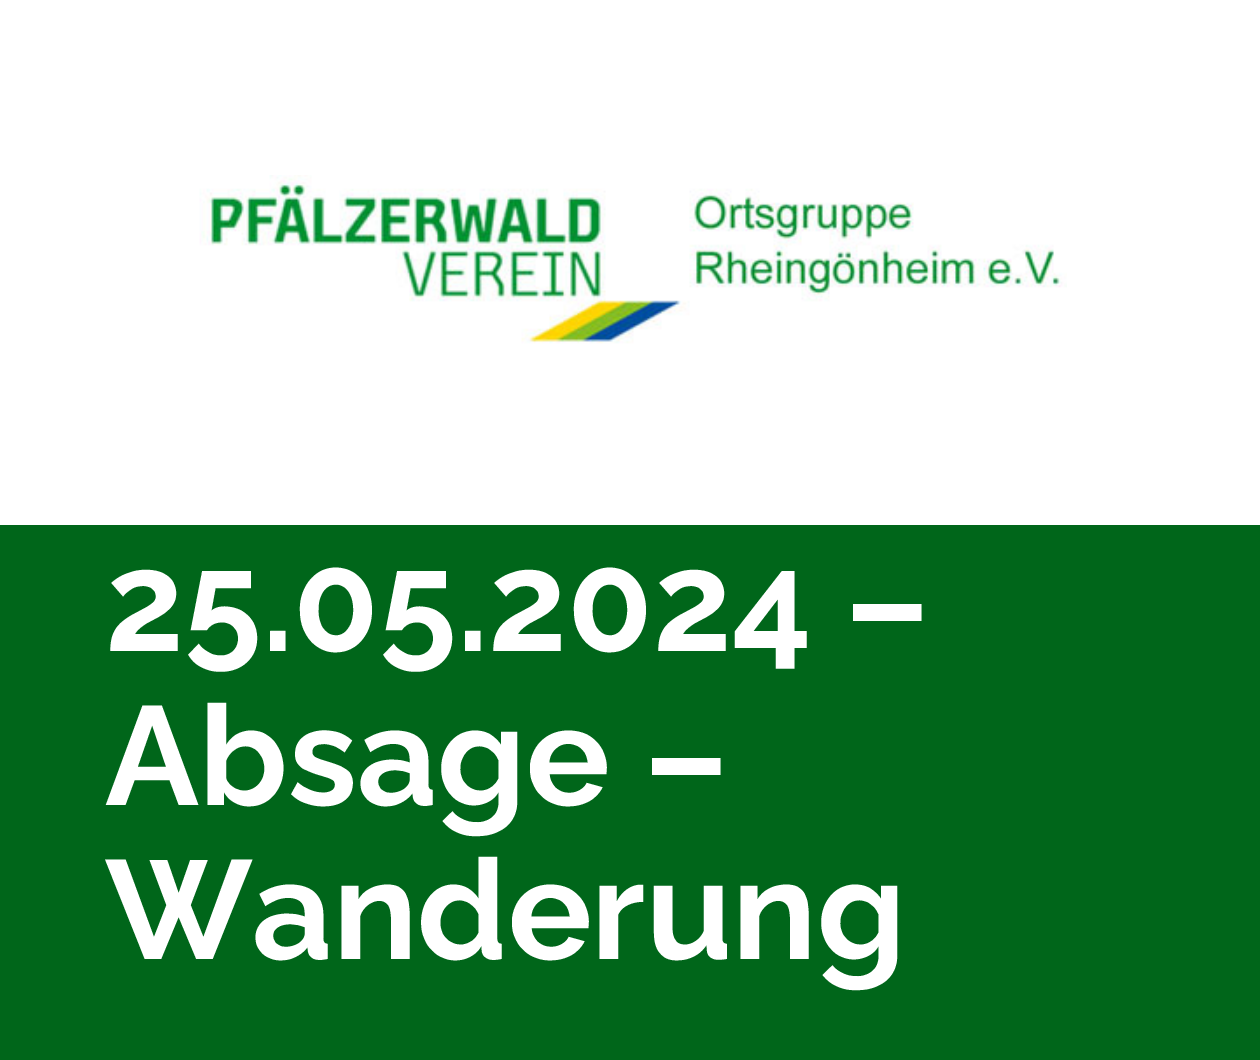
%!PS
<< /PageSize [1260 1060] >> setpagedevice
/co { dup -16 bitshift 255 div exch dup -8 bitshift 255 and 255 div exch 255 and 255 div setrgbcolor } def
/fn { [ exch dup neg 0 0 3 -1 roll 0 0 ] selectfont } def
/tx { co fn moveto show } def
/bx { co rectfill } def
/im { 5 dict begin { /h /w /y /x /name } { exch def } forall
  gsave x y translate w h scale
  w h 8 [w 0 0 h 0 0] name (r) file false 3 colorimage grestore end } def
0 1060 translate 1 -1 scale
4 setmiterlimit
0 0 1260 1060 16#FFFFFF bx
(media/1.raw) 199 175 868 169 im
0 525 1260 535 16#00661A bx
(25.05.2024 –) 105 651 /Raleway-Thin 140 16#FFFFFF tx
(Absage –) 105 805 /Raleway-Thin 140 16#FFFFFF tx
(Wanderung) 105 959 /Raleway-Thin 140 16#FFFFFF tx
showpage
